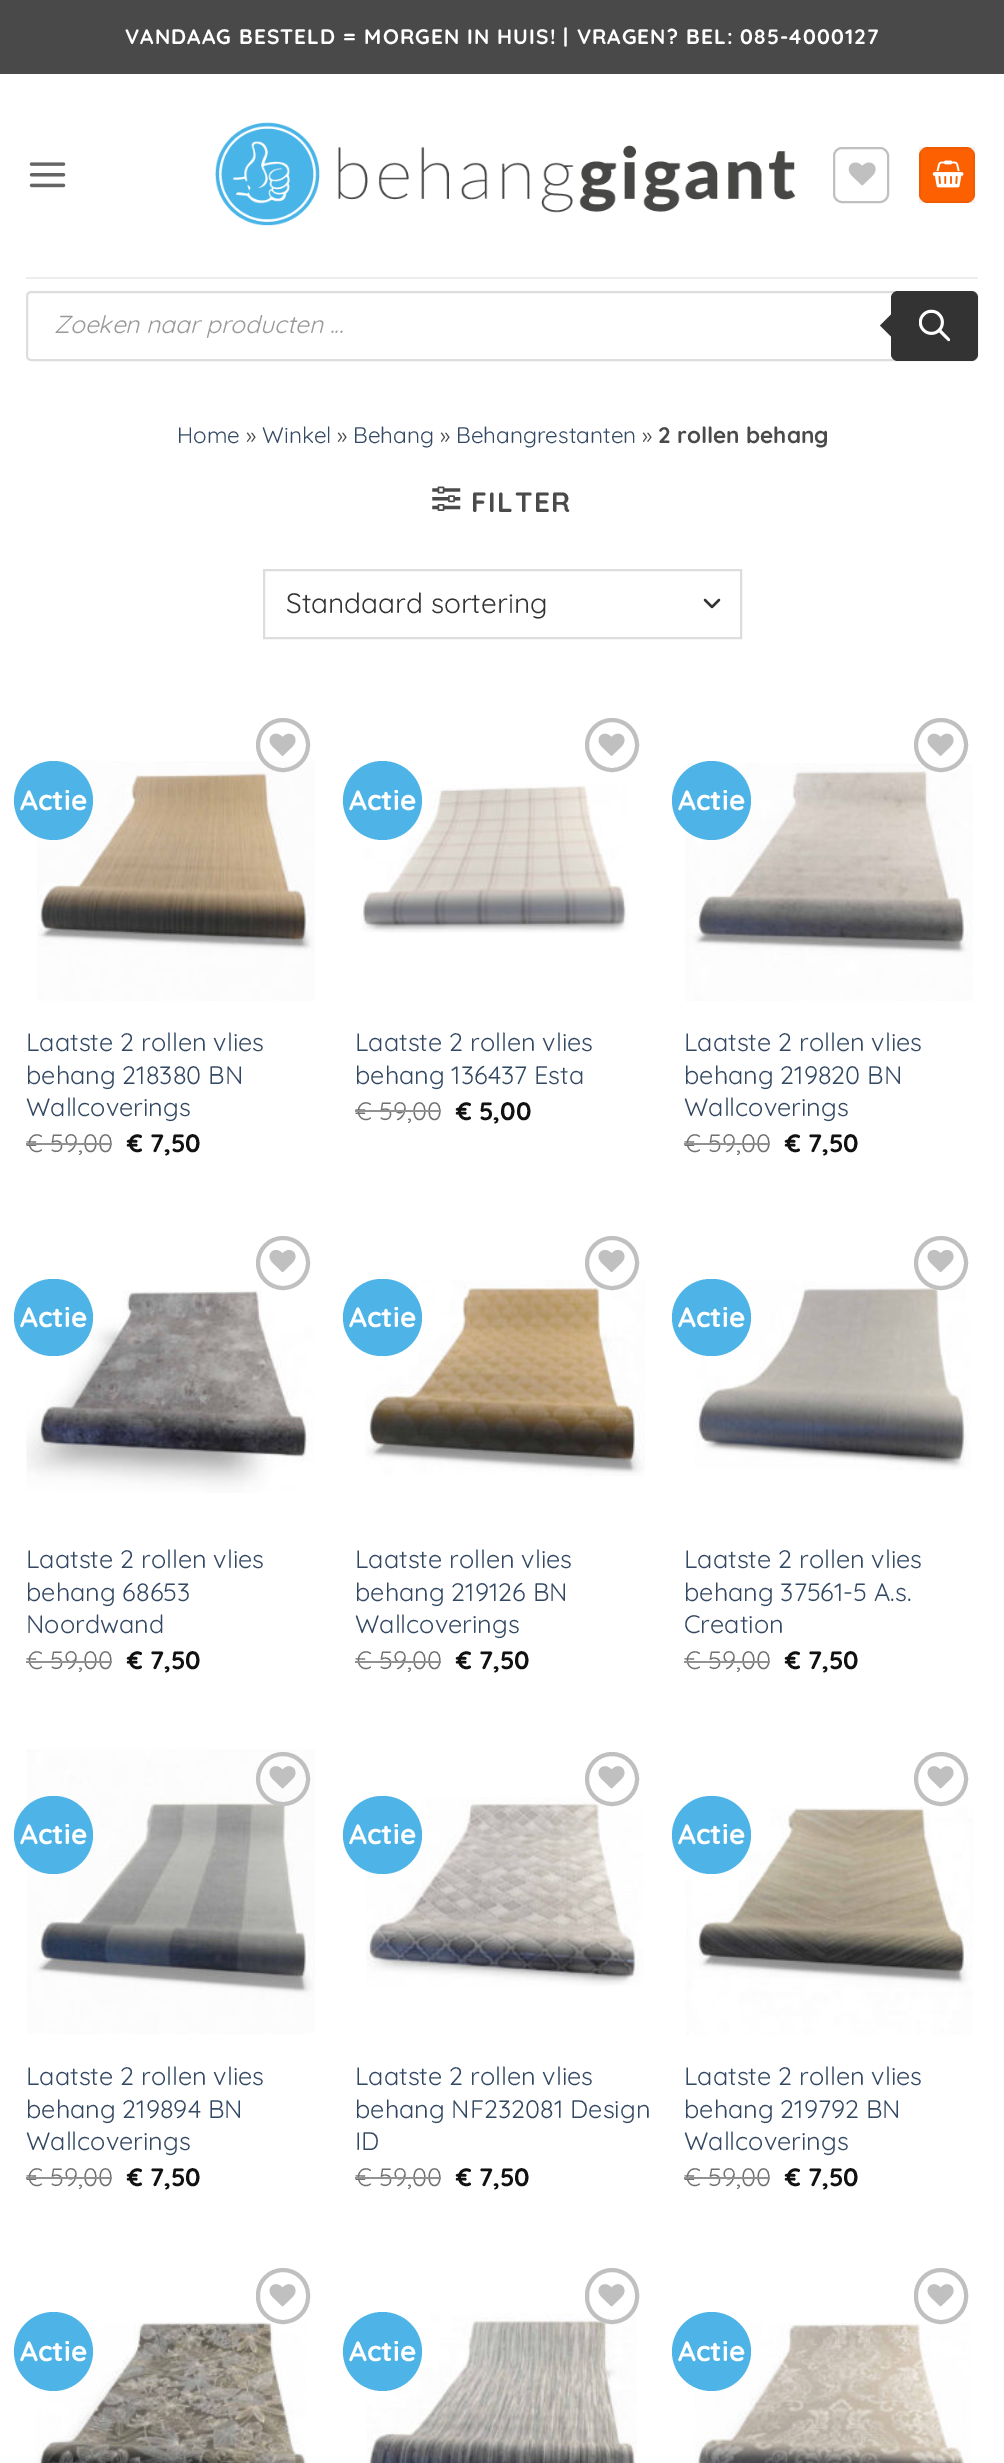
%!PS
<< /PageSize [1004 2463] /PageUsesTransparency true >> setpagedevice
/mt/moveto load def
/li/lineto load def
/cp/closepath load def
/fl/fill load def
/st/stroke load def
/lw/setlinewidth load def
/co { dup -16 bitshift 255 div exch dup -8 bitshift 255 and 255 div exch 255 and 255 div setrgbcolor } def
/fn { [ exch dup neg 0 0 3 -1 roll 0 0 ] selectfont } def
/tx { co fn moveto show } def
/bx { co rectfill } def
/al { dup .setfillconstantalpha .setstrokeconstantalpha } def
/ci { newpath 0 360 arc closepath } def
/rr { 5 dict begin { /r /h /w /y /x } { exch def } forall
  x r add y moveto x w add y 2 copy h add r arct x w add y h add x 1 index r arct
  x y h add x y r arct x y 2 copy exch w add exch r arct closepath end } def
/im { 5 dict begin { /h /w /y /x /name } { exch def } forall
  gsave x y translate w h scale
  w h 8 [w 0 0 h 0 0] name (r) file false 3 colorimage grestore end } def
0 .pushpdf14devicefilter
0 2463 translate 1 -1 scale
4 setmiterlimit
0 0 1004 2463 16#FFFFFF bx
0 0 1004 74 16#494949 bx
(media/1.raw) 29 162 37 26 im
(media/2.raw) 215 122 581 104 im
16#C0C0C0 co
2 lw
834 148 54 54 8 rr st
(media/3.raw) 848 162 28 24 im
16#FC6000 co
919 147 56 56 9 rr fl
0.05 al
16#000000 co
920 148 54 54 rectstroke
1 al
(media/4.raw) 932 160 32 28 im
26 277 952 2 16#EDEDED bx
16#DDDDDD co
27 292 950 68 4 rr st
16#333333 co
891 291 87 70 7 rr fl
894 311.5 mt 894 339.5 li 880 325.5 li cp fl
(media/5.raw) 919 309 31 33 im
(media/6.raw) 432 486 29 25 im
2.3 lw
1 setlinecap
1 setlinejoin
705 600 mt 712 607 li 719 600 li st
16#DDDDDD co
2 lw
0 setlinecap
0 setlinejoin
264 570 477 68 rectstroke
(media/8.raw) 37 761 278 240 im
16#4EB4E7 co
53.5 800.5 39.5 ci fl
16#C0C0C0 co
4 lw
283 745 25 ci st
(media/7.raw) 269 733 27 23 im
(media/9.raw) 361 784 268 149 im
16#4EB4E7 co
382.5 800.5 39.5 ci fl
16#C0C0C0 co
612 745 25 ci st
(media/7.raw) 598 733 27 23 im
(media/10.raw) 685 763 288 238 im
16#4EB4E7 co
711.5 800.5 39.5 ci fl
16#C0C0C0 co
941 745 25 ci st
(media/7.raw) 927 733 27 23 im
(media/12.raw) 26 1290 289 203 im
16#4EB4E7 co
14 1279 79 77 38.5 rr fl
16#C0C0C0 co
283 1263 25 ci st
(media/11.raw) 269 1249 27 24 im
(media/13.raw) 365 1280 280 196 im
16#4EB4E7 co
343 1279 79 77 38.5 rr fl
16#C0C0C0 co
612 1263 25 ci st
(media/11.raw) 598 1249 27 24 im
(media/14.raw) 695 1281 276 189 im
16#4EB4E7 co
672 1279 79 77 38.5 rr fl
16#C0C0C0 co
941 1263 25 ci st
(media/11.raw) 927 1249 27 24 im
(media/15.raw) 27 1749 288 285 im
16#4EB4E7 co
14 1796 79 78 39 rr fl
16#C0C0C0 co
283 1779 25 ci st
(media/16.raw) 269 1766 27 23 im
(media/18.raw) 366 1797 278 189 im
16#4EB4E7 co
343 1796 79 78 39 rr fl
16#C0C0C0 co
612 1779 25 ci st
(media/17.raw) 598 1766 27 23 im
(media/19.raw) 686 1807 287 228 im
16#4EB4E7 co
672 1796 79 78 39 rr fl
16#C0C0C0 co
941 1779 25 ci st
(media/17.raw) 927 1766 27 23 im
(media/20.raw) 34 2322 273 141 im
258 2270 50 52 25 rr st
(media/17.raw) 269 2284 27 23 im
16#4EB4E7 co
53.5 2351.5 39.5 ci fl
(media/21.raw) 366 2313 271 150 im
16#C0C0C0 co
587 2270 50 52 25 rr st
(media/17.raw) 598 2284 27 23 im
16#4EB4E7 co
382.5 2351.5 39.5 ci fl
(media/22.raw) 695 2323 276 140 im
16#C0C0C0 co
916 2270 50 52 25 rr st
(media/17.raw) 927 2284 27 23 im
16#4EB4E7 co
711.5 2351.5 39.5 ci fl
/Quicksand-Bold 21 fn
16#FFFFFF co
125 44 mt 1.05 0 (VANDAAG BESTELD = MORGEN IN HUIS! | VRAGEN? BEL: 085-4000127) ashow
(Zoeken naar producten ...) 54 333 /Quicksand-Italic 24.5 16#999999 tx
(Home) 177 443 /Quicksand-Regular 22.5 16#334862 tx
(») 246 443 /Quicksand-Regular 22.5 16#4A4A4A tx
(Winkel) 262 443 /Quicksand-Regular 22.5 16#334862 tx
(») 337 443 /Quicksand-Regular 22.5 16#4A4A4A tx
(Behang) 353 443 /Quicksand-Regular 22.5 16#334862 tx
(») 440 443 /Quicksand-Regular 22.5 16#4A4A4A tx
(Behangrestanten) 456 443 /Quicksand-Regular 22.5 16#334862 tx
(») 642 443 /Quicksand-Regular 22.5 16#4A4A4A tx
(2 rollen behang) 658 443 /Quicksand-Bold 22.5 16#4A4A4A tx
/Quicksand-Bold 28 fn
471 512 mt 1.5 0 (FILTER) ashow
(Standaard sortering) 286 613 /Quicksand-Regular 28 16#333333 tx
(Actie) 20 810 /Quicksand-Bold 28 16#FFFFFF tx
(Laatste 2 rollen vlies) 26 1051 /Quicksand-Regular 25.25 16#334862 tx
(behang 218380 BN) 26 1084 /Quicksand-Regular 25.25 16#334862 tx
(Wallcoverings) 26 1116 /Quicksand-Regular 25.25 16#334862 tx
(€ 59,00) 26 1152 /Quicksand-Regular 25.25 16#707070 tx
26 1143 86 2 16#929292 bx
(€ 7,50) 127 1152 /Quicksand-Bold 25.25 16#111111 tx
(Actie) 349 810 /Quicksand-Bold 28 16#FFFFFF tx
(Laatste 2 rollen vlies) 355 1051 /Quicksand-Regular 25.25 16#334862 tx
(behang 136437 Esta) 355 1084 /Quicksand-Regular 25.25 16#334862 tx
(€ 59,00) 355 1120 /Quicksand-Regular 25.25 16#707070 tx
355 1110 86 2 16#929292 bx
(€ 5,00) 456 1120 /Quicksand-Bold 25.25 16#111111 tx
(Actie) 678 810 /Quicksand-Bold 28 16#FFFFFF tx
(Laatste 2 rollen vlies) 684 1051 /Quicksand-Regular 25.25 16#334862 tx
(behang 219820 BN) 684 1084 /Quicksand-Regular 25.25 16#334862 tx
(Wallcoverings) 684 1116 /Quicksand-Regular 25.25 16#334862 tx
(€ 59,00) 684 1152 /Quicksand-Regular 25.25 16#707070 tx
684 1143 86 2 16#929292 bx
(€ 7,50) 785 1152 /Quicksand-Bold 25.25 16#111111 tx
(Actie) 20 1327 /Quicksand-Bold 28 16#FFFFFF tx
(Laatste 2 rollen vlies) 26 1568 /Quicksand-Regular 25.25 16#334862 tx
(behang 68653) 26 1601 /Quicksand-Regular 25.25 16#334862 tx
(Noordwand) 26 1633 /Quicksand-Regular 25.25 16#334862 tx
(€ 59,00) 26 1669 /Quicksand-Regular 25.25 16#707070 tx
26 1661 86 2 16#929292 bx
(€ 7,50) 127 1669 /Quicksand-Bold 25.25 16#111111 tx
(Actie) 349 1327 /Quicksand-Bold 28 16#FFFFFF tx
(Laatste rollen vlies) 355 1568 /Quicksand-Regular 25.25 16#334862 tx
(behang 219126 BN) 355 1601 /Quicksand-Regular 25.25 16#334862 tx
(Wallcoverings) 355 1633 /Quicksand-Regular 25.25 16#334862 tx
(€ 59,00) 355 1669 /Quicksand-Regular 25.25 16#707070 tx
355 1661 86 2 16#929292 bx
(€ 7,50) 456 1669 /Quicksand-Bold 25.25 16#111111 tx
(Actie) 678 1327 /Quicksand-Bold 28 16#FFFFFF tx
(Laatste 2 rollen vlies) 684 1568 /Quicksand-Regular 25.25 16#334862 tx
(behang 37561-5 A.s.) 684 1601 /Quicksand-Regular 25.25 16#334862 tx
(Creation) 684 1633 /Quicksand-Regular 25.25 16#334862 tx
(€ 59,00) 684 1669 /Quicksand-Regular 25.25 16#707070 tx
684 1661 86 2 16#929292 bx
(€ 7,50) 785 1669 /Quicksand-Bold 25.25 16#111111 tx
(Actie) 20 1844 /Quicksand-Bold 28 16#FFFFFF tx
(Laatste 2 rollen vlies) 26 2085 /Quicksand-Regular 25.25 16#334862 tx
(behang 219894 BN) 26 2118 /Quicksand-Regular 25.25 16#334862 tx
(Wallcoverings) 26 2150 /Quicksand-Regular 25.25 16#334862 tx
(€ 59,00) 26 2186 /Quicksand-Regular 25.25 16#707070 tx
26 2177 86 2 16#929292 bx
(€ 7,50) 127 2186 /Quicksand-Bold 25.25 16#111111 tx
(Actie) 349 1844 /Quicksand-Bold 28 16#FFFFFF tx
(Laatste 2 rollen vlies) 355 2085 /Quicksand-Regular 25.25 16#334862 tx
(behang NF232081 Design) 355 2118 /Quicksand-Regular 25.25 16#334862 tx
(ID) 355 2150 /Quicksand-Regular 25.25 16#334862 tx
(€ 59,00) 355 2186 /Quicksand-Regular 25.25 16#707070 tx
355 2177 86 2 16#929292 bx
(€ 7,50) 456 2186 /Quicksand-Bold 25.25 16#111111 tx
(Actie) 678 1844 /Quicksand-Bold 28 16#FFFFFF tx
(Laatste 2 rollen vlies) 684 2085 /Quicksand-Regular 25.25 16#334862 tx
(behang 219792 BN) 684 2118 /Quicksand-Regular 25.25 16#334862 tx
(Wallcoverings) 684 2150 /Quicksand-Regular 25.25 16#334862 tx
(€ 59,00) 684 2186 /Quicksand-Regular 25.25 16#707070 tx
684 2177 86 2 16#929292 bx
(€ 7,50) 785 2186 /Quicksand-Bold 25.25 16#111111 tx
(Actie) 20 2361 /Quicksand-Bold 28 16#FFFFFF tx
(Actie) 349 2361 /Quicksand-Bold 28 16#FFFFFF tx
(Actie) 678 2361 /Quicksand-Bold 28 16#FFFFFF tx
.poppdf14devicefilter showpage
